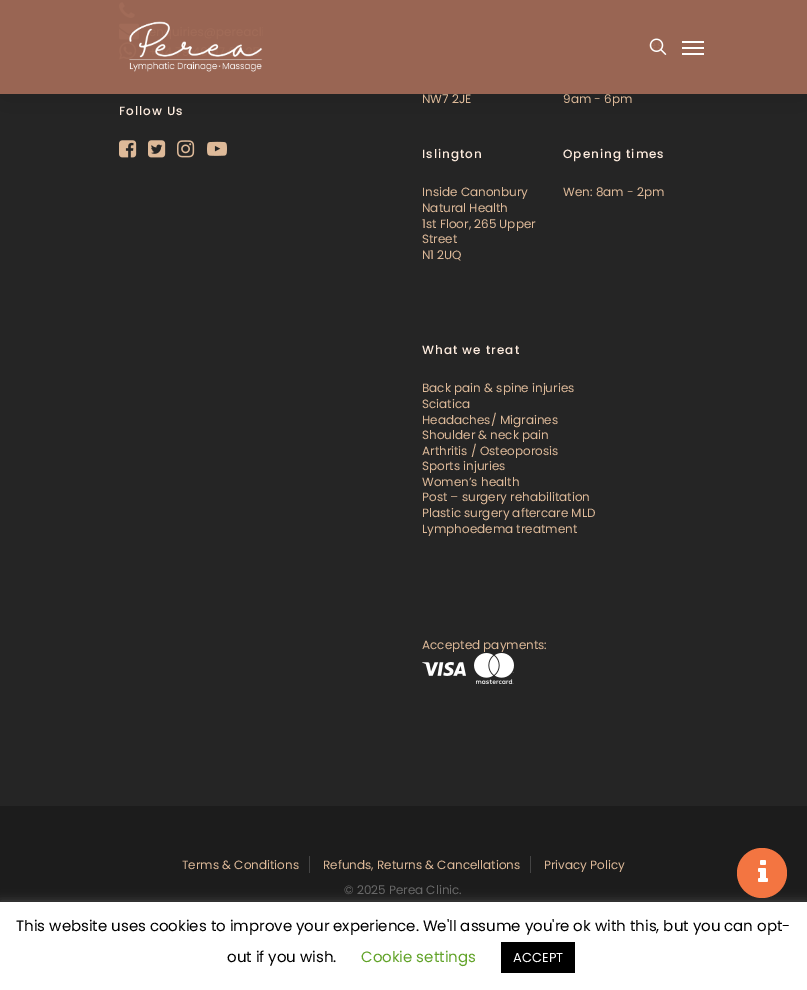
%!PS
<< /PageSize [807 990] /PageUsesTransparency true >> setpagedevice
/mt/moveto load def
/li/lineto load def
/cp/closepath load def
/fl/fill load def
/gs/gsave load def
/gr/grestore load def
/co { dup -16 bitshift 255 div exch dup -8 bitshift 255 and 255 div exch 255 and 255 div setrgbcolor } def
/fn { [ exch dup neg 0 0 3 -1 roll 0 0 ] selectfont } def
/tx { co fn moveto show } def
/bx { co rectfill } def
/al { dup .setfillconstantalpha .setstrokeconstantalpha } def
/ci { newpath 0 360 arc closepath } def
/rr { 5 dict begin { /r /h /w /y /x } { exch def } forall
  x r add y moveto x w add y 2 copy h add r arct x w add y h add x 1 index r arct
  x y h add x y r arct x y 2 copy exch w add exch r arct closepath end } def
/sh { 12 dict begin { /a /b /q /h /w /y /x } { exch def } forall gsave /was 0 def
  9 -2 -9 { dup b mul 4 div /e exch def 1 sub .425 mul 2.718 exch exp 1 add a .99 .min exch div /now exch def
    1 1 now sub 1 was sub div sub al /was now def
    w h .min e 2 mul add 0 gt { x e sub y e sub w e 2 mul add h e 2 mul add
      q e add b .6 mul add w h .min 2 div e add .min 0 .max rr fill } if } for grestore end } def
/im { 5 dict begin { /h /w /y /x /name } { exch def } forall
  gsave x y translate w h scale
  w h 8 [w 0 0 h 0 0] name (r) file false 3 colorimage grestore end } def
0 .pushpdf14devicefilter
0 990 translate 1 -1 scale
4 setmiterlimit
0 0 807 990 16#252525 bx
(media/3.raw) 119 2 16 16 im
(media/4.raw) 119 23 20 17 im
(media/5.raw) 119 42 18 18 im
(media/6.raw) 119 140 18 18 im
(media/7.raw) 148 140 18 18 im
(media/8.raw) 177 140 18 18 im
(media/9.raw) 207 141 20 15 im
gs
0 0 mt 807 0 li 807 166 li 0 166 li cp 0 -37 mt 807 -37 li 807 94 li 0 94 li cp eoclip newpath
16#000000 co
0 -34 807 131 0 22.5 .15 sh
gr
0.96 al
0 0 807 94 16#9E6855 bx
1 al
(media/1.raw) 129 21 134 51 im
(media/2.raw) 649 38 18 17 im
682 41 22 2 16#FFFFFF bx
682 53 22 2 16#FFFFFF bx
682 47 22 2 16#FFFFFF bx
(media/10.raw) 422 662 44 14 im
(media/11.raw) 474 653 40 31 im
0 806 807 96 16#1C1C1C bx
309 856 1 17 16#444444 bx
530 856 1 17 16#444444 bx
16#ACABAB co
0 901 807 88 0 5 .3 sh
16#F37541 co
762 873 25 ci fl
(media/12.raw) 758 860 10 22 im
0 902 807 88 16#FFFFFF bx
501 942 74 31 16#000000 bx
/Poppins-Medium 12 fn
16#FFEDDF co
119 115 mt 1 0 (Follow Us) ashow
(NW7 2JE) 422 103 /Poppins-Regular 12 16#DEBA99 tx
(9am - 6pm) 563 103 /Poppins-Regular 12 16#DEBA99 tx
/Poppins-Medium 12 fn
16#FFEDDF co
422 158 mt 1 0 (Islington) ashow
(Inside Canonbury) 422 196 /Poppins-Regular 12 16#DEBA99 tx
(Natural Health) 422 212 /Poppins-Regular 12 16#DEBA99 tx
(1st Floor, 265 Upper) 422 228 /Poppins-Regular 12 16#DEBA99 tx
(Street) 422 243 /Poppins-Regular 12 16#DEBA99 tx
(N1 2UQ) 422 259 /Poppins-Regular 12 16#DEBA99 tx
/Poppins-Medium 12 fn
16#FFEDDF co
563 158 mt 1 0 (Opening times) ashow
(Wen: 8am - 2pm) 563 196 /Poppins-Regular 12 16#DEBA99 tx
/Poppins-Medium 12 fn
16#FFEDDF co
422 354 mt 1 0 (What we treat) ashow
(Back pain & spine injuries) 422 392 /Poppins-Regular 12 16#DEBA99 tx
(Sciatica) 422 408 /Poppins-Regular 12 16#DEBA99 tx
(Headaches/ Migraines) 422 424 /Poppins-Regular 12 16#DEBA99 tx
(Shoulder & neck pain) 422 439 /Poppins-Regular 12 16#DEBA99 tx
(Arthritis / Osteoporosis) 422 455 /Poppins-Regular 12 16#DEBA99 tx
(Sports injuries) 422 470 /Poppins-Regular 12 16#DEBA99 tx
(Women’s health) 422 486 /Poppins-Regular 12 16#DEBA99 tx
(Post – surgery rehabilitation) 422 501 /Poppins-Regular 12 16#DEBA99 tx
(Plastic surgery aftercare MLD) 422 517 /Poppins-Regular 12 16#DEBA99 tx
(Lymphoedema treatment) 422 533 /Poppins-Regular 12 16#DEBA99 tx
(Accepted payments:) 422 649 /Poppins-Regular 12 16#DEBA99 tx
(Terms & Conditions) 182 869 /Poppins-Regular 12 16#DEBA99 tx
(Refunds, Returns & Cancellations) 323 869 /Poppins-Regular 12 16#DEBA99 tx
(Privacy Policy) 544 869 /Poppins-Regular 12 16#DEBA99 tx
(© 2025 Perea Clinic.) 344 894 /Poppins-Regular 12 16#686868 tx
(This website uses cookies to improve your experience. We'll assume you're ok with this, but you can opt-) 16 931 /Poppins-Regular 15 16#000000 tx
(out if you wish.) 227 962 /Poppins-Regular 15 16#000000 tx
(Cookie settings) 361 962 /Poppins-Regular 15 16#62A329 tx
(ACCEPT) 513 962 /Poppins-Regular 13 16#FFFFFF tx
.poppdf14devicefilter showpage
